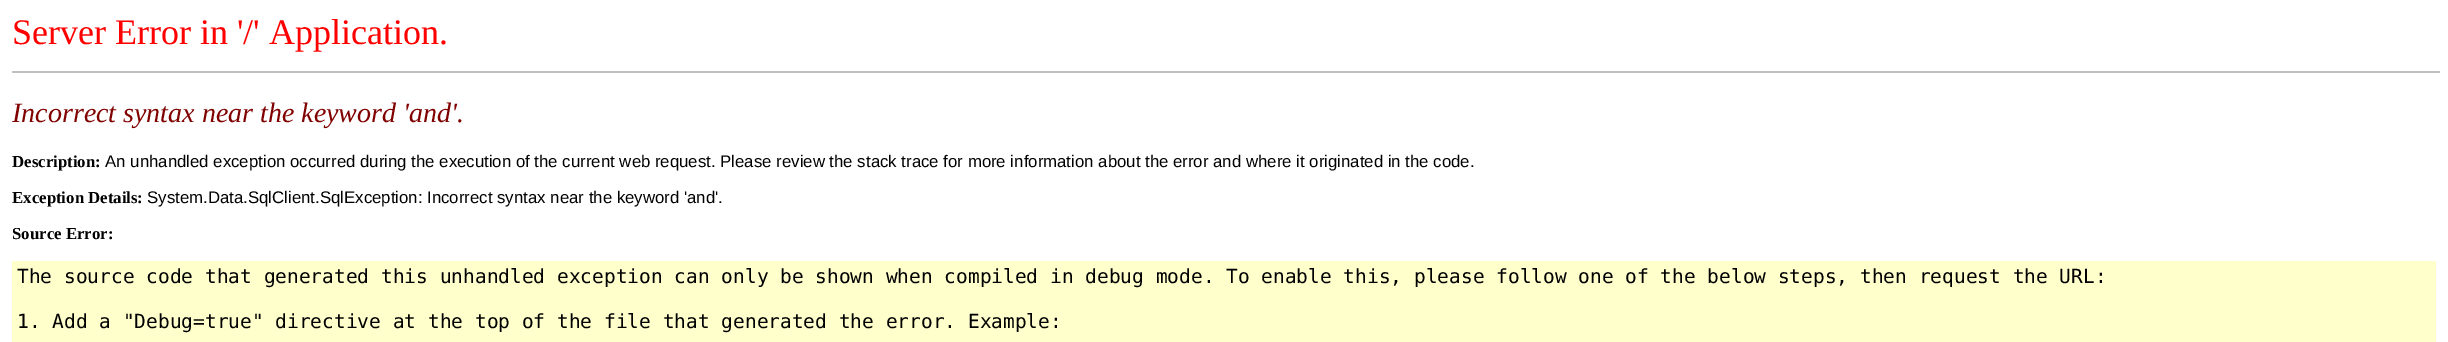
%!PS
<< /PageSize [2448 342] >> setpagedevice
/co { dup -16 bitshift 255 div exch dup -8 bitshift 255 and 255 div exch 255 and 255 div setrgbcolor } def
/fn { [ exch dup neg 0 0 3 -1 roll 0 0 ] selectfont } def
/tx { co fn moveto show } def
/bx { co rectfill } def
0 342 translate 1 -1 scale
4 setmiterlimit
0 0 2448 342 16#FFFFFF bx
12 71 2428 2 16#C0C0C0 bx
12 261 2424 81 16#FFFFCC bx
(Server Error in '/' Application.) 12 44 /LiberationSerif-Regular 36 16#FF0000 tx
(Incorrect syntax near the keyword 'and'.) 12 122 /LiberationSerif-Italic 28 16#800000 tx
(Description:) 12 167 /LiberationSerif-Bold 16.8 16#000000 tx
(An unhandled exception occurred during the execution of the current web request. Please review the stack trace for more information about the error and where it originated in the code.) 105 167 /LiberationSans-Regular 16.8 16#000000 tx
(Exception Details:) 12 203 /LiberationSerif-Bold 16.8 16#000000 tx
(System.Data.SqlClient.SqlException: Incorrect syntax near the keyword 'and'.) 147 203 /LiberationSans-Regular 16.8 16#000000 tx
(Source Error:) 12 239 /LiberationSerif-Bold 16.8 16#000000 tx
(The source code that generated this unhandled exception can only be shown when compiled in debug mode. To enable this, please follow one of the below steps, then request the URL:) 17 283 /DejaVuSansMono-Regular 19.5 16#000000 tx
(1. Add a "Debug=true" directive at the top of the file that generated the error. Example:) 17 328 /DejaVuSansMono-Regular 19.5 16#000000 tx
showpage
